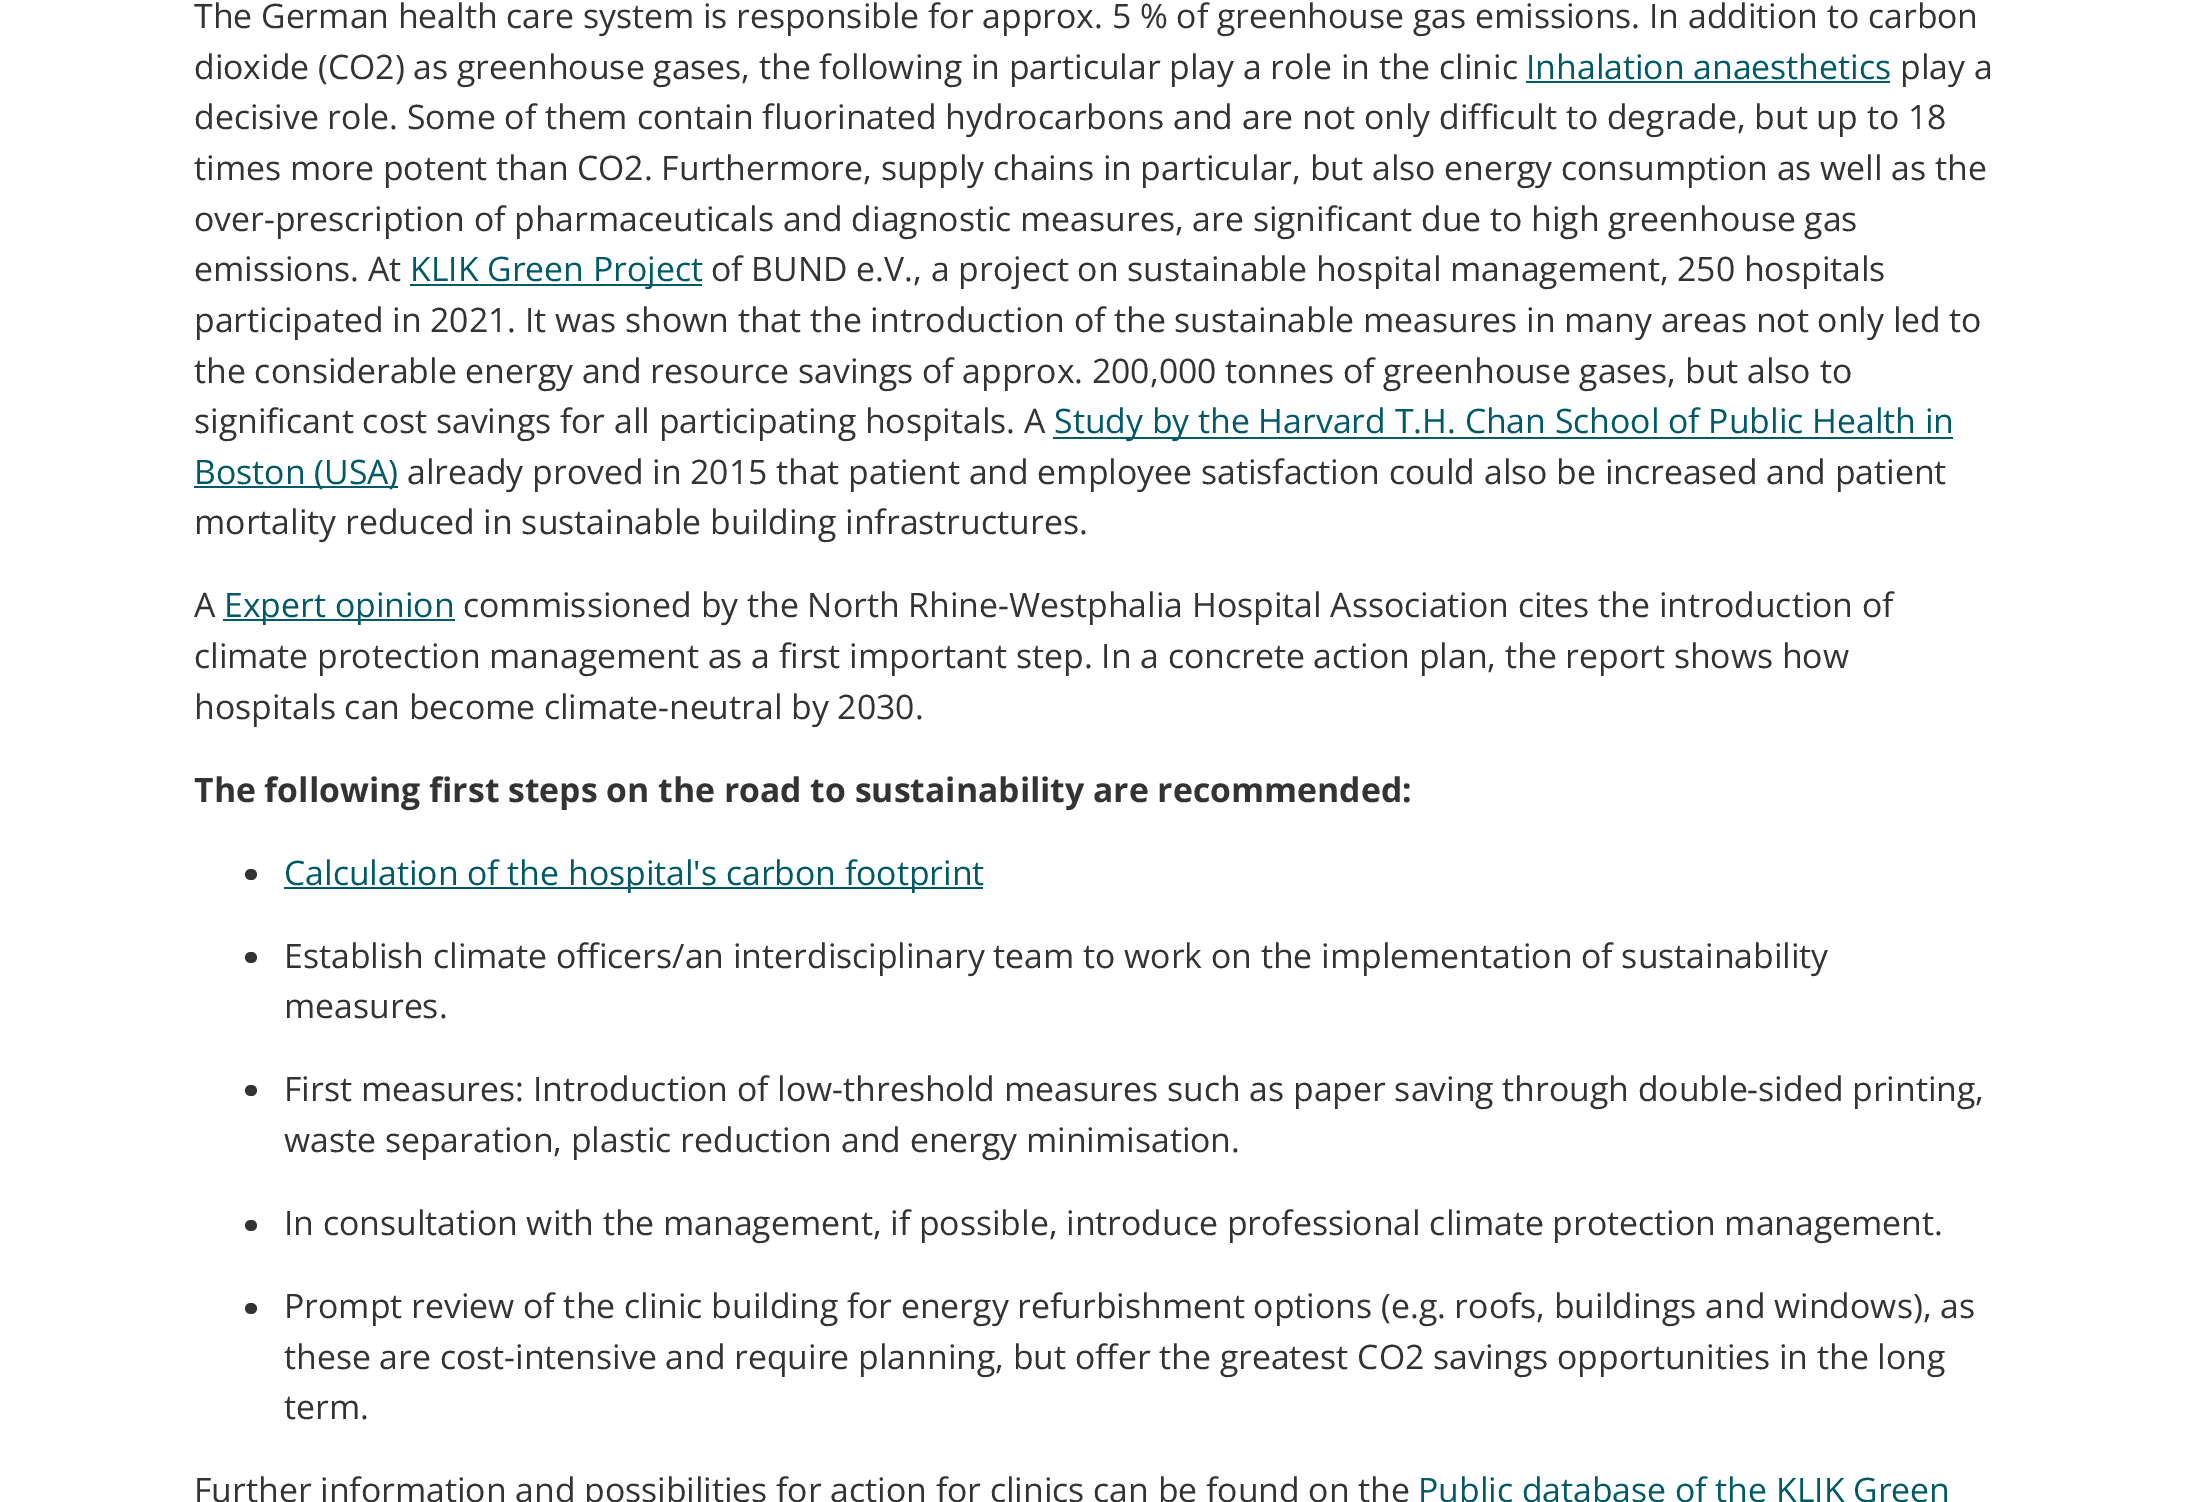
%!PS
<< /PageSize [2187 1502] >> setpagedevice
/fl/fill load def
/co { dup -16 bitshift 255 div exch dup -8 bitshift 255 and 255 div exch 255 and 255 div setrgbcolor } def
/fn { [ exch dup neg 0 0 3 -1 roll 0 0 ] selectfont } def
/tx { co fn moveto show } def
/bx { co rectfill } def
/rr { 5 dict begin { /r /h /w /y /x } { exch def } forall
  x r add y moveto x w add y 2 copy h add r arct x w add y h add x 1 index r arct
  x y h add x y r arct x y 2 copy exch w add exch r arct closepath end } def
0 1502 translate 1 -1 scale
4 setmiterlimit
0 0 2187 1502 16#FFFFFF bx
1526 81 364 2 16#005966 bx
410 284 292 2 16#005966 bx
1053 437 900 2 16#005966 bx
194 486 204 2 16#005966 bx
223 619 232 2 16#005966 bx
16#333333 co
245 869 12 11 5.5 rr fl
284 887 699 2 16#005966 bx
16#333333 co
245 952 12 11 5.5 rr fl
245 1085 12 11 5.5 rr fl
245 1220 12 11 5.5 rr fl
245 1303 12 11 5.5 rr fl
(The German health care system is responsible for approx. 5 % of greenhouse gas emissions. In addition to carbon) 194 28 /OpenSans-Regular 33.75 16#333333 tx
(dioxide \(CO2\) as greenhouse gases, the following in particular play a role in the clinic) 194 79 /OpenSans-Regular 33.75 16#333333 tx
(Inhalation anaesthetics) 1526 79 /OpenSans-Regular 33.75 16#005966 tx
(play a) 1900 79 /OpenSans-Regular 33.75 16#333333 tx
(decisive role. Some of them contain fluorinated hydrocarbons and are not only difficult to degrade, but up to 18) 194 129 /OpenSans-Regular 33.75 16#333333 tx
(times more potent than CO2. Furthermore, supply chains in particular, but also energy consumption as well as the) 194 180 /OpenSans-Regular 33.75 16#333333 tx
(over-prescription of pharmaceuticals and diagnostic measures, are significant due to high greenhouse gas) 194 231 /OpenSans-Regular 33.75 16#333333 tx
(emissions. At) 194 281 /OpenSans-Regular 33.75 16#333333 tx
(KLIK Green Project) 410 281 /OpenSans-Regular 33.75 16#005966 tx
(of BUND e.V., a project on sustainable hospital management, 250 hospitals) 711 281 /OpenSans-Regular 33.75 16#333333 tx
(participated in 2021. It was shown that the introduction of the sustainable measures in many areas not only led to) 194 332 /OpenSans-Regular 33.75 16#333333 tx
(the considerable energy and resource savings of approx. 200,000 tonnes of greenhouse gases, but also to) 194 383 /OpenSans-Regular 33.75 16#333333 tx
(significant cost savings for all participating hospitals. A) 194 433 /OpenSans-Regular 33.75 16#333333 tx
(Study by the Harvard T.H. Chan School of Public Health in) 1054 433 /OpenSans-Regular 33.75 16#005966 tx
(Boston \(USA\)) 194 484 /OpenSans-Regular 33.75 16#005966 tx
(already proved in 2015 that patient and employee satisfaction could also be increased and patient) 407 484 /OpenSans-Regular 33.75 16#333333 tx
(mortality reduced in sustainable building infrastructures.) 194 534 /OpenSans-Regular 33.75 16#333333 tx
(A) 194 617 /OpenSans-Regular 33.75 16#333333 tx
(Expert opinion) 224 617 /OpenSans-Regular 33.75 16#005966 tx
(commissioned by the North Rhine-Westphalia Hospital Association cites the introduction of) 463 617 /OpenSans-Regular 33.75 16#333333 tx
(climate protection management as a first important step. In a concrete action plan, the report shows how) 194 668 /OpenSans-Regular 33.75 16#333333 tx
(hospitals can become climate-neutral by 2030.) 194 719 /OpenSans-Regular 33.75 16#333333 tx
(The following first steps on the road to sustainability are recommended:) 194 802 /OpenSans-Bold 33.75 16#333333 tx
(Calculation of the hospital's carbon footprint) 284 885 /OpenSans-Regular 33.75 16#005966 tx
(Establish climate officers/an interdisciplinary team to work on the implementation of sustainability) 284 968 /OpenSans-Regular 33.75 16#333333 tx
(measures.) 284 1018 /OpenSans-Regular 33.75 16#333333 tx
(First measures: Introduction of low-threshold measures such as paper saving through double-sided printing,) 284 1101 /OpenSans-Regular 33.75 16#333333 tx
(waste separation, plastic reduction and energy minimisation.) 284 1152 /OpenSans-Regular 33.75 16#333333 tx
(In consultation with the management, if possible, introduce professional climate protection management.) 284 1235 /OpenSans-Regular 33.75 16#333333 tx
(Prompt review of the clinic building for energy refurbishment options \(e.g. roofs, buildings and windows\), as) 284 1318 /OpenSans-Regular 33.75 16#333333 tx
(these are cost-intensive and require planning, but offer the greatest CO2 savings opportunities in the long) 284 1369 /OpenSans-Regular 33.75 16#333333 tx
(term.) 284 1419 /OpenSans-Regular 33.75 16#333333 tx
(Further information and possibilities for action for clinics can be found on the) 194 1502 /OpenSans-Regular 33.75 16#333333 tx
(Public database of the KLIK Green) 1418 1502 /OpenSans-Regular 33.75 16#005966 tx
showpage
